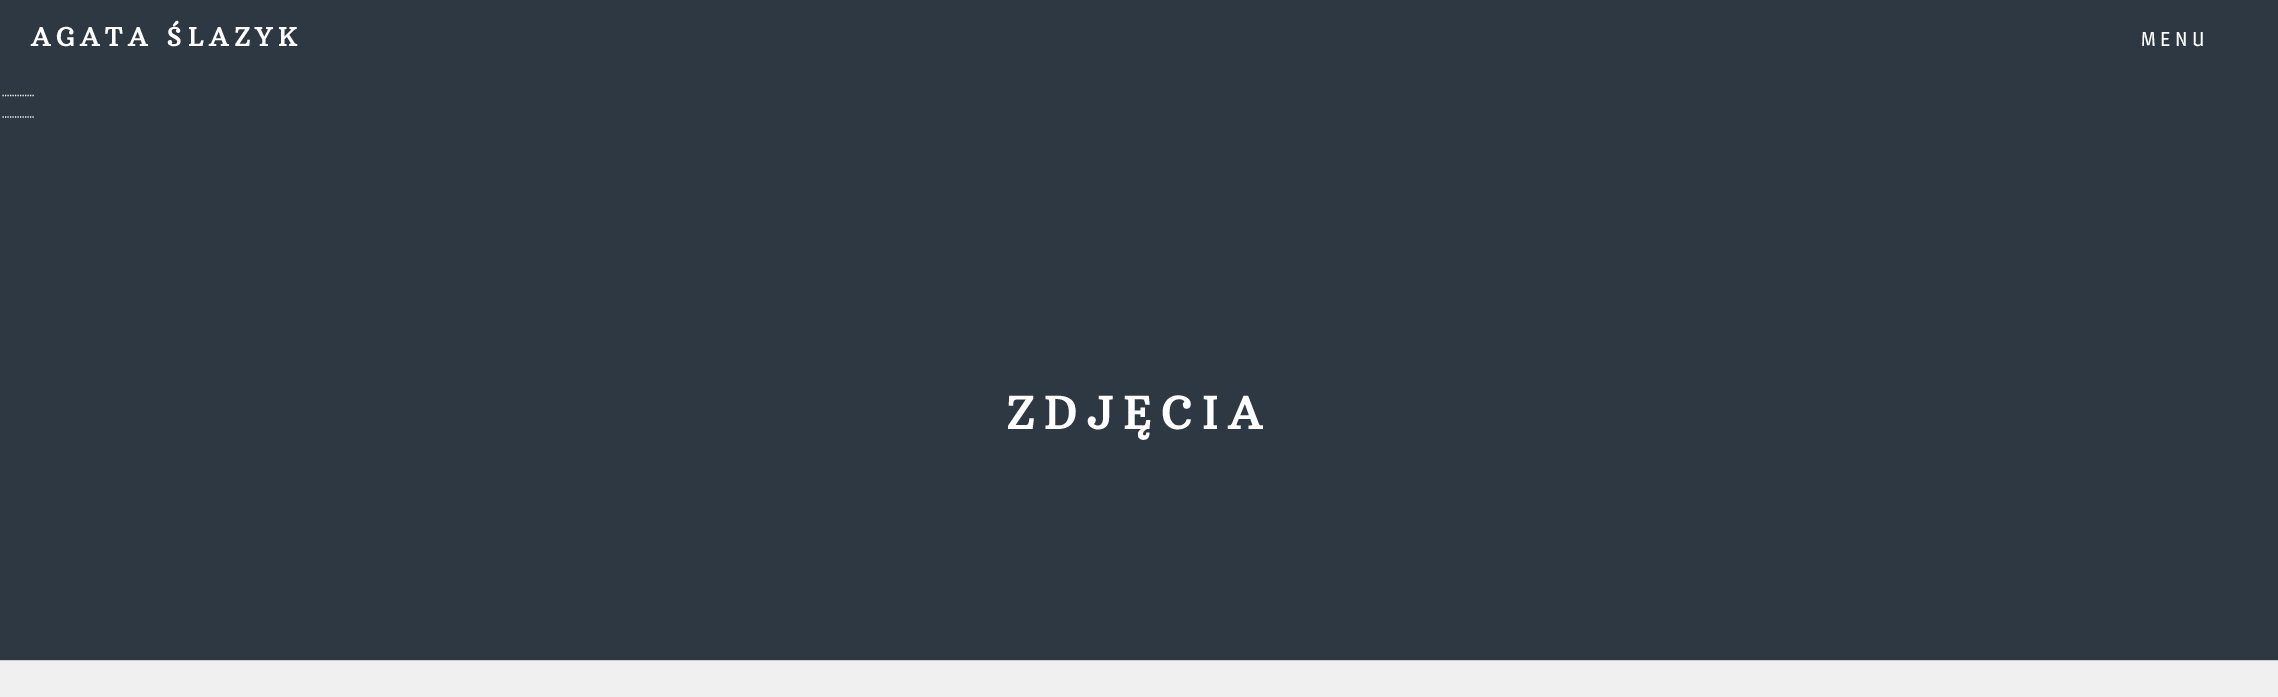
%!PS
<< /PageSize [2278 697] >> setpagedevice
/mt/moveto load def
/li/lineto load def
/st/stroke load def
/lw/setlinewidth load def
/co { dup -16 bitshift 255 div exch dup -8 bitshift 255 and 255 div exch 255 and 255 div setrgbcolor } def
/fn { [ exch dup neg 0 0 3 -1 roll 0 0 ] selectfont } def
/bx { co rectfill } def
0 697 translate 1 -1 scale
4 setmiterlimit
0 0 2278 697 16#2E3842 bx
16#FFFFFF co
1.2 lw
[1.25 1.25] 0 setdash
2.5 95.5 mt 34 95.5 li 2.5 117 mt 34 117 li st
0 661 2278 36 16#F0F0F0 bx
0 660 2278 1 16#CCCCCC bx
/ArbutusSlab-Bold 25 fn
16#FFFFFF co
31 46 mt 5.6 0 (AGATA ŚLAZYK) ashow
/Magra-Regular 20 fn
2141 46 mt 4.5 0 (MENU) ashow
/ArbutusSlab-Bold 43.75 fn
1006 429 mt 9.75 0 (ZDJĘCIA) ashow
showpage
